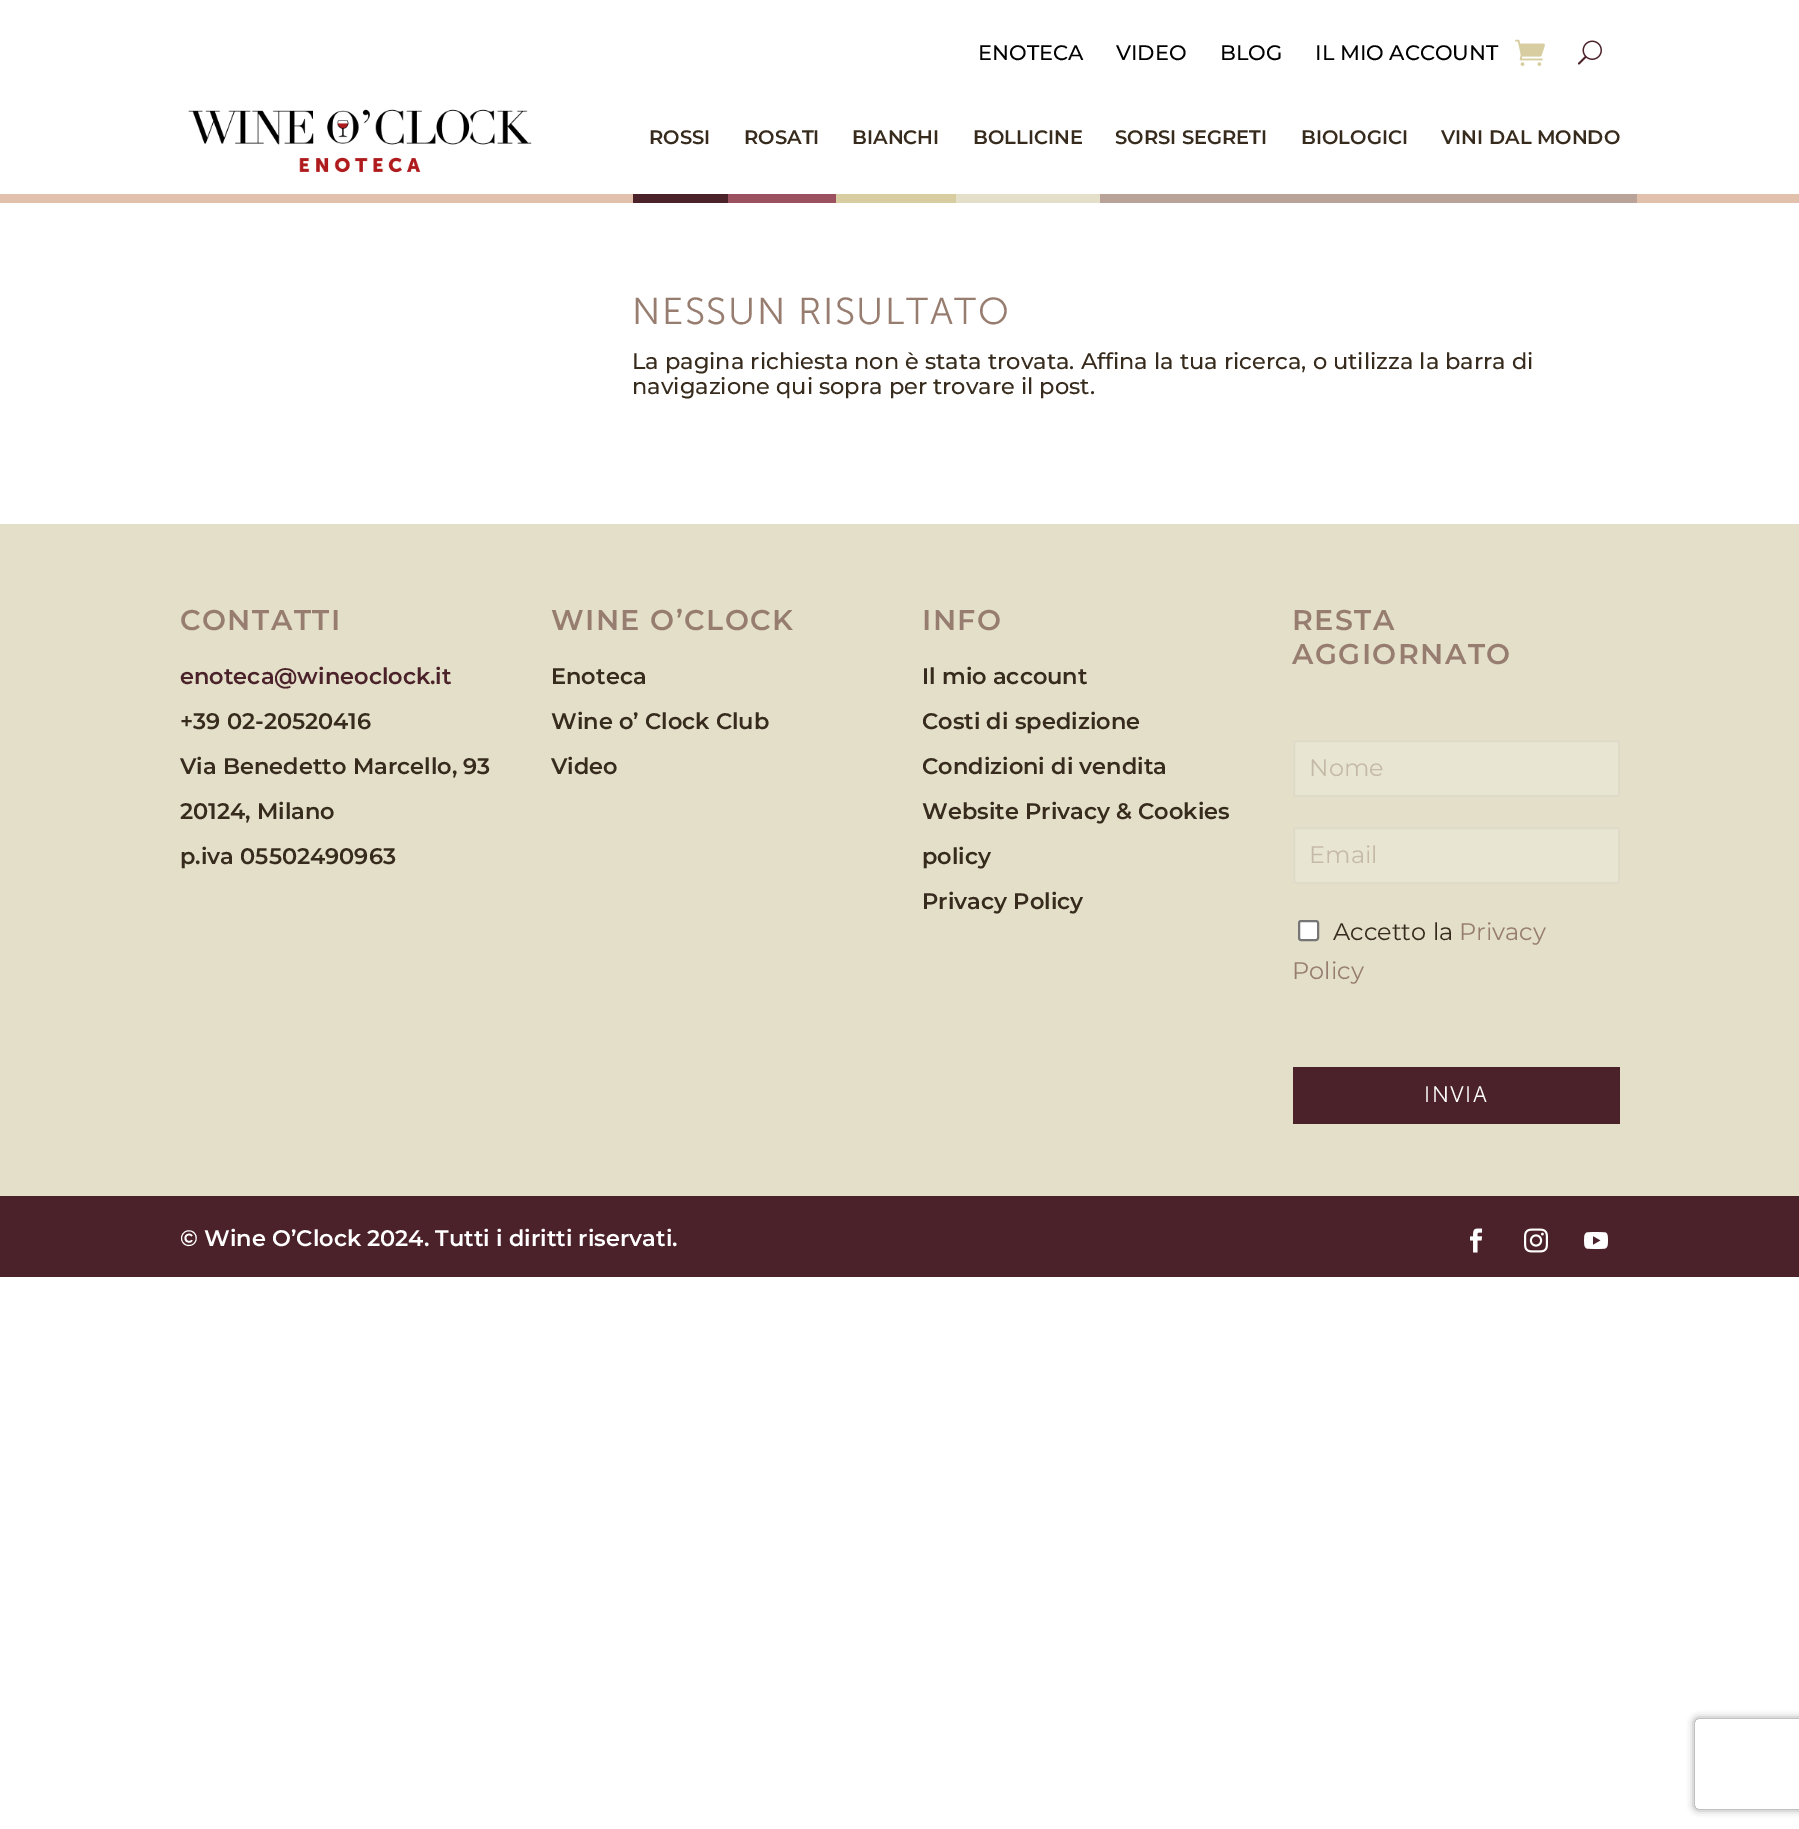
%!PS
<< /PageSize [1799 1829] /PageUsesTransparency true >> setpagedevice
/mt/moveto load def
/li/lineto load def
/ct/curveto load def
/cp/closepath load def
/fl/fill load def
/st/stroke load def
/gs/gsave load def
/gr/grestore load def
/lw/setlinewidth load def
/co { dup -16 bitshift 255 div exch dup -8 bitshift 255 and 255 div exch 255 and 255 div setrgbcolor } def
/fn { [ exch dup neg 0 0 3 -1 roll 0 0 ] selectfont } def
/tx { co fn moveto show } def
/bx { co rectfill } def
/al { dup .setfillconstantalpha .setstrokeconstantalpha } def
/rr { 5 dict begin { /r /h /w /y /x } { exch def } forall
  x r add y moveto x w add y 2 copy h add r arct x w add y h add x 1 index r arct
  x y h add x y r arct x y 2 copy exch w add exch r arct closepath end } def
/sh { 12 dict begin { /a /b /q /h /w /y /x } { exch def } forall gsave /was 0 def
  9 -2 -9 { dup b mul 4 div /e exch def 1 sub .425 mul 2.718 exch exp 1 add a .99 .min exch div /now exch def
    1 1 now sub 1 was sub div sub al /was now def
    w h .min e 2 mul add 0 gt { x e sub y e sub w e 2 mul add h e 2 mul add
      q e add b .6 mul add w h .min 2 div e add .min 0 .max rr fill } if } for grestore end } def
/im { 5 dict begin { /h /w /y /x /name } { exch def } forall
  gsave x y translate w h scale
  w h 8 [w 0 0 h 0 0] name (r) file false 3 colorimage grestore end } def
0 .pushpdf14devicefilter
0 1829 translate 1 -1 scale
4 setmiterlimit
0 0 1799 1829 16#FFFFFF bx
0 194 1799 9 16#E1C1AC bx
(media/1.raw) 1515 39 30 27 im
(media/2.raw) 1577 40 25 25 im
(media/3.raw) 188 109 344 64 im
633 194 95 9 16#4B222A bx
728 194 108 9 16#9B5160 bx
836 194 120 9 16#D7CDA1 bx
956 194 144 9 16#E3DFC8 bx
1100 194 537 9 16#B9A398 bx
0 524 1799 672 16#E3DFC8 bx
16#E9E5D3 co
1294 741 325 55 2 rr gs fl gr
16#DEDBC9 co
2 lw
st
16#E9E5D3 co
1294 828 325 55 2 rr gs fl gr
16#DEDBC9 co
st
16#FFFFFF co
1299 921 19 19 2 rr gs fl gr
16#767676 co
st
1293 1067 327 57 16#4B222A bx
0 1196 1799 81 16#4B222A bx
(media/4.raw) 1470 1228 13 25 im
(media/5.raw) 1524 1228 24 25 im
(media/6.raw) 1584 1232 24 17 im
gs
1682 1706 mt 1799 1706 li 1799 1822 li 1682 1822 li cp 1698 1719 mt 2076 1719 li 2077.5 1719 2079 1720.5 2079 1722 ct 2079 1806 li 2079 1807.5 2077.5 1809 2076 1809 ct 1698 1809 li 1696.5 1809 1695 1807.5 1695 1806 ct 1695 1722 li 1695 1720.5 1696.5 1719 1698 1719 ct cp eoclip newpath
16#808080 co
1695 1719 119 90 3 4 1 sh
gr
(ENOTECA) 978 60 /Montserrat-Medium 21 16#000000 tx
(VIDEO) 1116 60 /Montserrat-Medium 21 16#000000 tx
(BLOG) 1220 60 /Montserrat-Medium 21 16#000000 tx
(IL MIO ACCOUNT) 1315 60 /Montserrat-Medium 21 16#000000 tx
(ROSSI) 649 144 /Montserrat-SemiBold 19.5 16#372B1D tx
(ROSATI) 744 144 /Montserrat-SemiBold 19.5 16#372B1D tx
(BIANCHI) 852 144 /Montserrat-SemiBold 19.5 16#372B1D tx
(BOLLICINE) 973 144 /Montserrat-SemiBold 19.5 16#372B1D tx
(SORSI SEGRETI) 1115 144 /Montserrat-SemiBold 19.5 16#372B1D tx
(BIOLOGICI) 1301 144 /Montserrat-SemiBold 19.5 16#372B1D tx
(VINI DAL MONDO) 1441 144 /Montserrat-SemiBold 19.5 16#372B1D tx
/MuseoSans-Light 37.5 fn
16#977D70 co
632 324 mt 1.5 0 (NESSUN RISULTATO) ashow
(La pagina richiesta non è stata trovata. Affina la tua ricerca, o utilizza la barra di) 632 369 /Montserrat-Medium 22.5 16#372B1D tx
(navigazione qui sopra per trovare il post.) 632 394 /Montserrat-Medium 22.5 16#372B1D tx
/Montserrat-SemiBold 28.5 fn
16#977D70 co
180 630 mt 1.5 0 (CONTATTI) ashow
(enoteca@wineoclock.it) 180 684 /Montserrat-SemiBold 22.5 16#4B222A tx
(+39 02-20520416) 180 729 /Montserrat-SemiBold 22.5 16#372B1D tx
(Via Benedetto Marcello, 93) 180 774 /Montserrat-SemiBold 22.5 16#372B1D tx
(20124, Milano) 180 819 /Montserrat-SemiBold 22.5 16#372B1D tx
(p.iva 05502490963) 180 864 /Montserrat-SemiBold 22.5 16#372B1D tx
/Montserrat-SemiBold 28.5 fn
16#977D70 co
551 630 mt 1.5 0 (WINE O’CLOCK) ashow
(Enoteca) 551 684 /Montserrat-SemiBold 22.5 16#372B1D tx
(Wine o’ Clock Club) 551 729 /Montserrat-SemiBold 22.5 16#372B1D tx
(Video) 551 774 /Montserrat-SemiBold 22.5 16#372B1D tx
/Montserrat-SemiBold 28.5 fn
16#977D70 co
922 630 mt 1.5 0 (INFO) ashow
(Il mio account) 922 684 /Montserrat-SemiBold 22.5 16#372B1D tx
(Costi di spedizione) 922 729 /Montserrat-SemiBold 22.5 16#372B1D tx
(Condizioni di vendita) 922 774 /Montserrat-SemiBold 22.5 16#372B1D tx
(Website Privacy & Cookies) 922 819 /Montserrat-SemiBold 22.5 16#372B1D tx
(policy) 922 864 /Montserrat-SemiBold 22.5 16#372B1D tx
(Privacy Policy) 922 909 /Montserrat-SemiBold 22.5 16#372B1D tx
/Montserrat-SemiBold 28.5 fn
16#977D70 co
1292 630 mt 1.5 0 (RESTA) ashow
1292 664 mt 1.5 0 (AGGIORNATO) ashow
(Nome) 1309 776 /Montserrat-Regular 24 16#C5B9A8 tx
(Email) 1309 863 /Montserrat-Regular 24 16#C5B9A8 tx
(Accetto la) 1333 940 /Montserrat-Regular 24 16#372B1D tx
(Privacy) 1459 940 /Montserrat-Regular 24 16#977D70 tx
(Policy) 1292 979 /Montserrat-Regular 24 16#977D70 tx
/MuseoSans-Light 22.5 fn
16#FFFFFF co
1424 1102 mt 1.5 0 (INVIA) ashow
(© Wine O’Clock 2024. Tutti i diritti riservati.) 180 1246 /Montserrat-SemiBold 22.5 16#FFFFFF tx
.poppdf14devicefilter showpage
